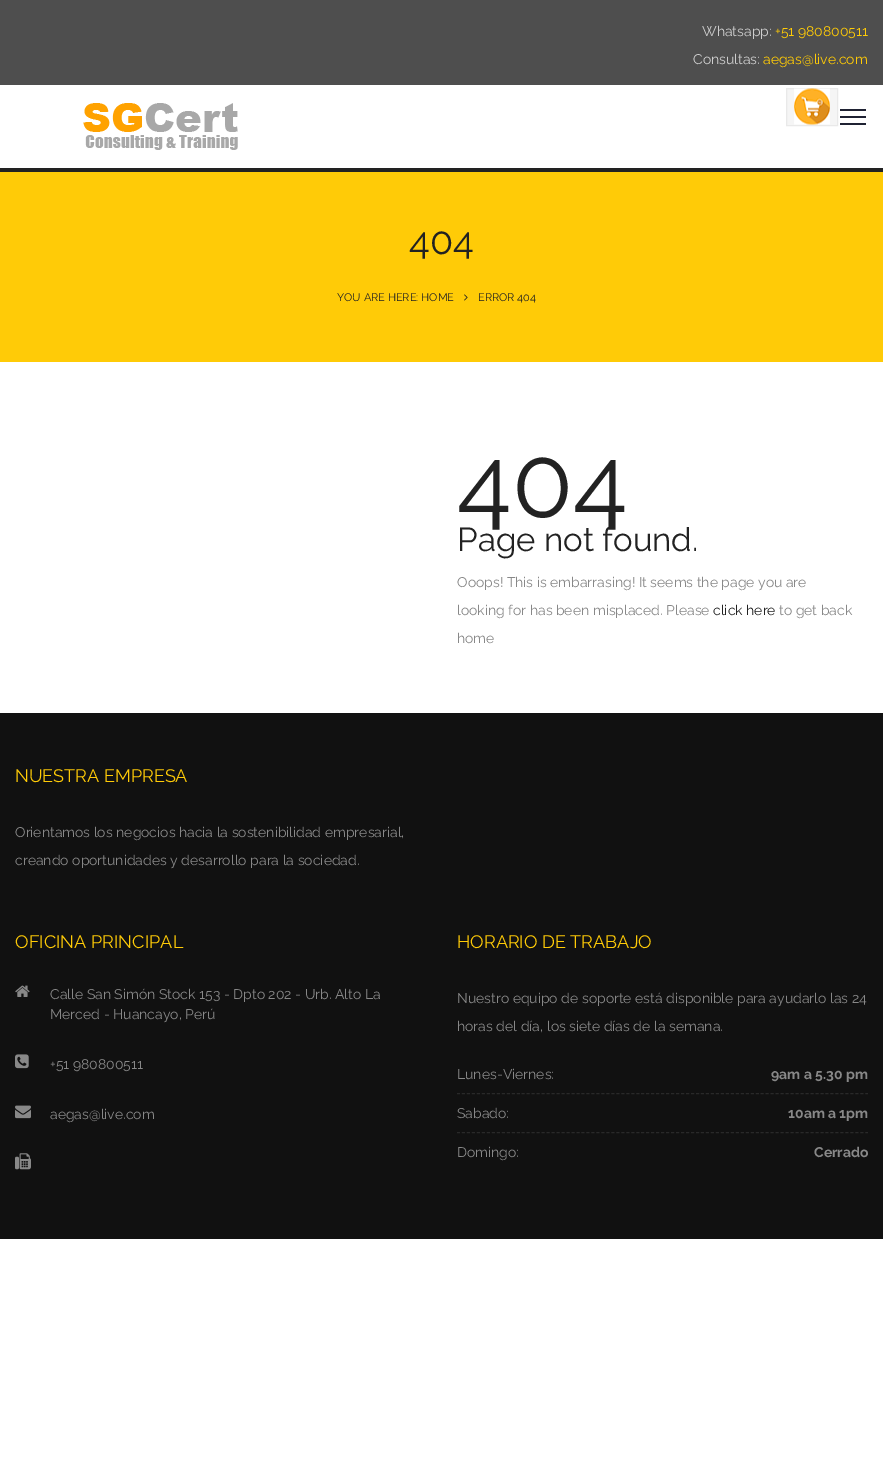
%!PS
<< /PageSize [883 1482] >> setpagedevice
/mt/moveto load def
/li/lineto load def
/cp/closepath load def
/fl/fill load def
/st/stroke load def
/gs/gsave load def
/gr/grestore load def
/co { dup -16 bitshift 255 div exch dup -8 bitshift 255 and 255 div exch 255 and 255 div setrgbcolor } def
/fn { [ exch dup neg 0 0 3 -1 roll 0 0 ] selectfont } def
/tx { co fn moveto show } def
/bx { co rectfill } def
/im { 5 dict begin { /h /w /y /x /name } { exch def } forall
  gsave x y translate w h scale
  w h 8 [w 0 0 h 0 0] name (r) file false 3 colorimage grestore end } def
0 1482 translate 1 -1 scale
4 setmiterlimit
0 0 883 1482 16#FFFFFF bx
0 0 883 85 16#4E4E4E bx
0 168 883 4 16#222222 bx
(media/1.raw) 83 103 155 47 im
16#F5F5F5 co
786.5 88.5 mt 837.5 88.5 li 837.5 125.5 li 786.5 125.5 li cp gs fl gr
16#E9E9E9 co
st
(media/2.raw) 794 88 36 37 im
840 109 26 2 16#1F2233 bx
840 116 26 2 16#1F2233 bx
840 123 26 2 16#1F2233 bx
0 172 883 190 16#FFCB07 bx
(media/3.raw) 464 294 4 7 im
0 713 883 526 16#111111 bx
(media/4.raw) 15 985 15 12 im
(media/5.raw) 15 1054 14 15 im
(media/6.raw) 15 1105 16 14 im
(media/7.raw) 15 1153 16 17 im
16#292929 co
[3 1.98] 0 setdash
457 1093.5 mt 868 1093.5 li st
457 1132.5 mt 868 1132.5 li st
(Whatsapp:) 702 36 /Raleway-Regular 14 16#CECECE tx
(+51 980800511) 775 36 /Raleway-Regular 14 16#FFCB07 tx
(Consultas:) 693 64 /Raleway-Regular 14 16#CECECE tx
(aegas@live.com) 763 64 /Raleway-Regular 14 16#FFCB07 tx
(404) 409 254 /Raleway-Regular 38 16#222222 tx
(YOU ARE HERE: HOME) 337 301 /Raleway-Regular 11 16#222222 tx
(ERROR 404) 478 301 /Raleway-Regular 11 16#222222 tx
(404) 457 517 /Raleway-Regular 100 16#222222 tx
(Page not found.) 457 551 /Raleway-Regular 33 16#222222 tx
(Ooops! This is embarrasing! It seems the page you are) 457 587 /Raleway-Regular 14 16#888888 tx
(looking for has been misplaced. Please) 457 615 /Raleway-Regular 14 16#888888 tx
(click here) 713 615 /Raleway-Regular 14 16#222222 tx
(to get back) 779 615 /Raleway-Regular 14 16#888888 tx
(home) 457 643 /Raleway-Regular 14 16#888888 tx
(NUESTRA EMPRESA) 15 782 /Raleway-Regular 18 16#FFCB07 tx
(Orientamos los negocios hacia la sostenibilidad empresarial,) 15 837 /Raleway-Regular 14 16#888888 tx
(creando oportunidades y desarrollo para la sociedad.) 15 865 /Raleway-Regular 14 16#888888 tx
(OFICINA PRINCIPAL) 15 948 /Raleway-Regular 18 16#FFCB07 tx
(Calle San Simón Stock 153 - Dpto 202 - Urb. Alto La) 50 999 /Raleway-Regular 14 16#888888 tx
(Merced - Huancayo, Perú) 50 1019 /Raleway-Regular 14 16#888888 tx
(+51 980800511) 50 1069 /Raleway-Regular 14 16#888888 tx
(aegas@live.com) 50 1119 /Raleway-Regular 14 16#888888 tx
(HORARIO DE TRABAJO) 457 948 /Raleway-Regular 18 16#FFCB07 tx
(Nuestro equipo de soporte está disponible para ayudarlo las 24) 457 1003 /Raleway-Regular 14 16#888888 tx
(horas del día, los siete días de la semana.) 457 1031 /Raleway-Regular 14 16#888888 tx
(Lunes-Viernes:) 457 1079 /Raleway-Regular 14 16#888888 tx
(9am a 5.30 pm) 771 1079 /Raleway-Bold 14 16#888888 tx
(Sabado:) 457 1118 /Raleway-Regular 14 16#888888 tx
(10am a 1pm) 788 1118 /Raleway-Bold 14 16#888888 tx
(Domingo:) 457 1157 /Raleway-Regular 14 16#888888 tx
(Cerrado) 814 1157 /Raleway-Bold 14 16#888888 tx
showpage
